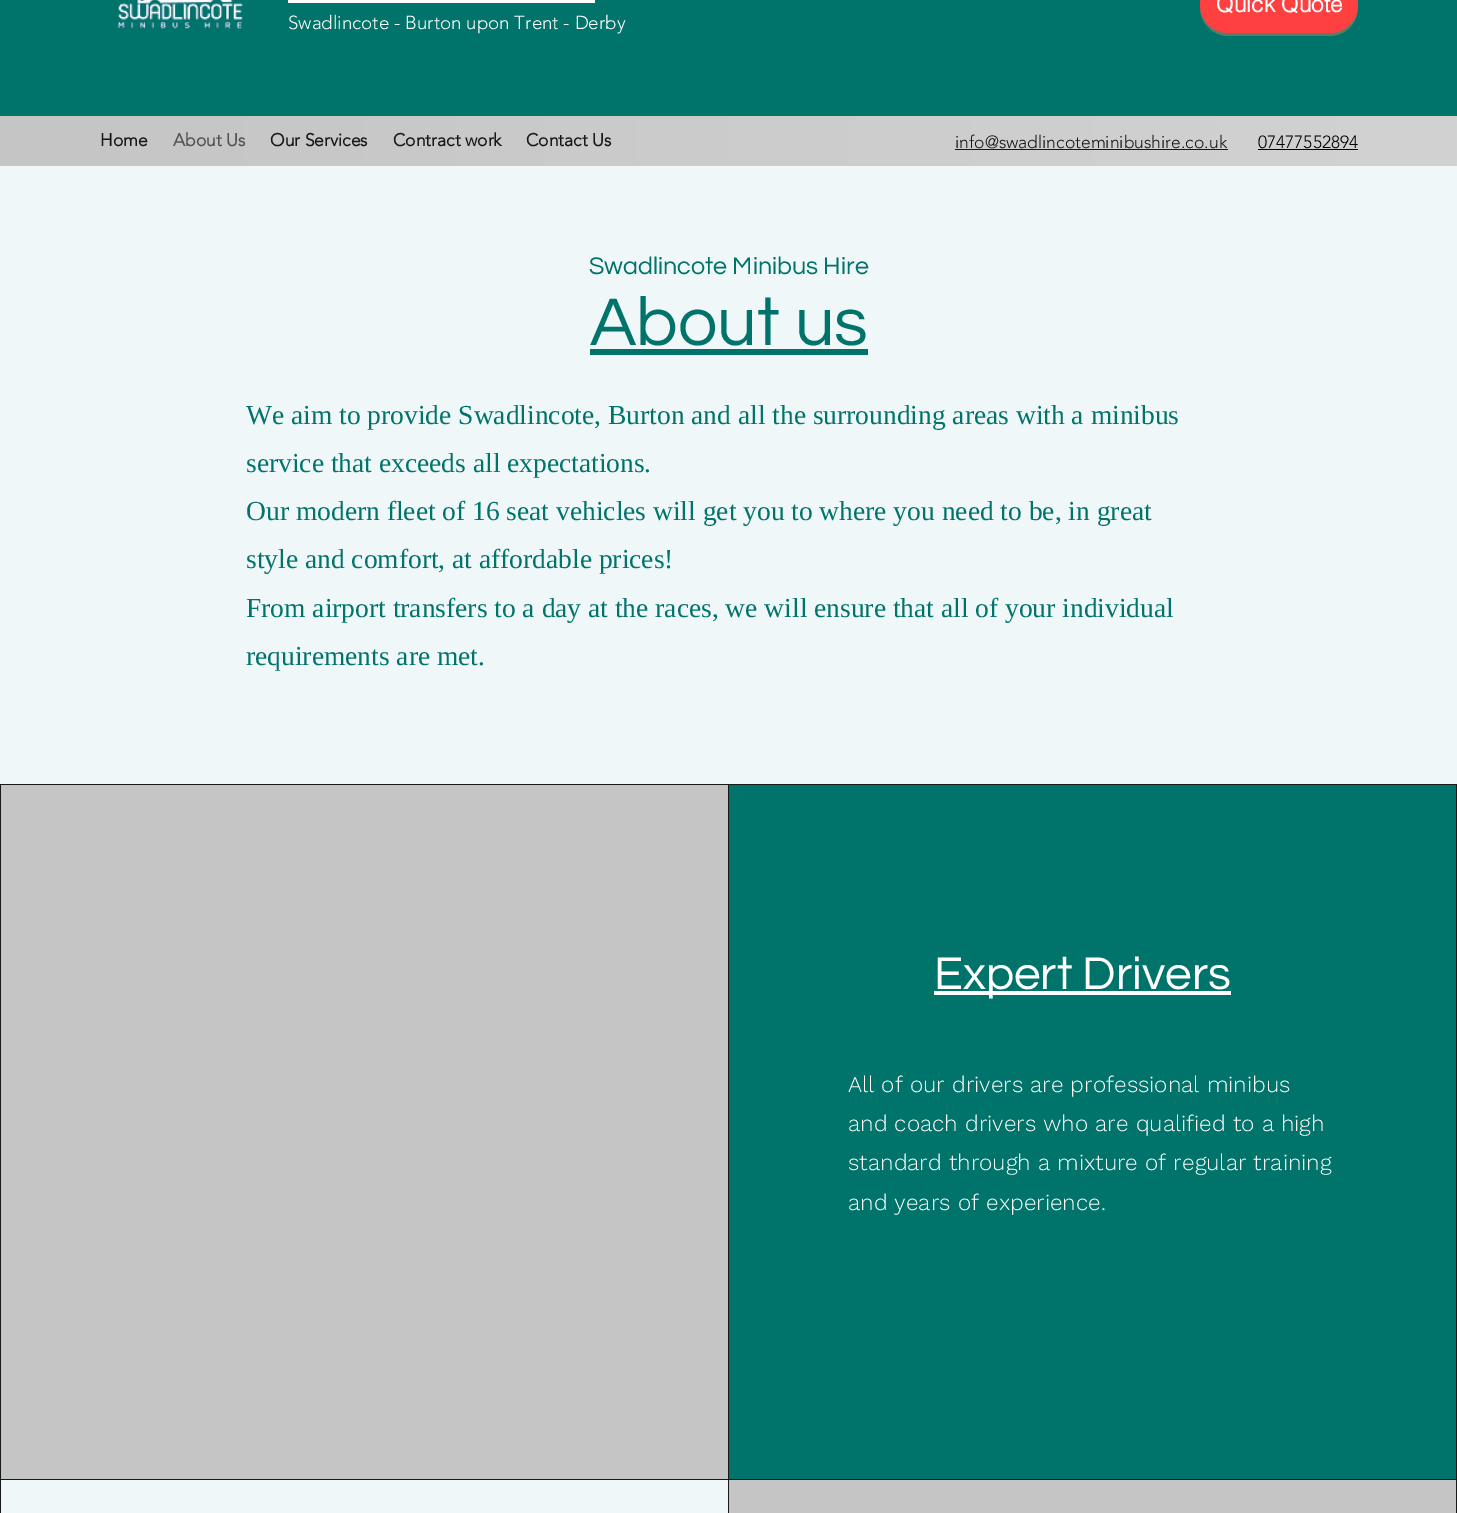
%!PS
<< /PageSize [1457 1513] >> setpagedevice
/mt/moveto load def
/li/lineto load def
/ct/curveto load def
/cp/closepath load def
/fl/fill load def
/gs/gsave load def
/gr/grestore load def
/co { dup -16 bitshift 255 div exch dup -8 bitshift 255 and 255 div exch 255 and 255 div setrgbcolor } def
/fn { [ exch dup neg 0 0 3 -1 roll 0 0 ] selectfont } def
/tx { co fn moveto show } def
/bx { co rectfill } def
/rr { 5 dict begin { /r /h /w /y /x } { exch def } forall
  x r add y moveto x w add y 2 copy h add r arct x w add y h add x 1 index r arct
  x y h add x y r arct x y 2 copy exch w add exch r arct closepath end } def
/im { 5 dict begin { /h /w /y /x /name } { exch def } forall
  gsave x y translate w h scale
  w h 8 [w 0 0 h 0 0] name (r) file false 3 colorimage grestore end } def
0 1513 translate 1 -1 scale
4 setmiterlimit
0 0 1457 1513 16#F0F7F9 bx
0 0 1457 116 16#00736B bx
16#597C68 co
1200 6 mt 1200 8 li 1200 23 1213 36 1228 36 ct 1330 36 li 1345 36 1358 23 1358 8 ct 1357 2 li 1358 4 li 1358 20 1345 32 1329 32 ct 1228 32 li 1213 32 1201 21 1200 6 ct cp fl
16#FF4040 co
1200 -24 158 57 28.5 rr fl
(media/1.raw) 117 0 126 29 im
288 0 307 3 16#FFFFFF bx
gs 0 116 mt 1457 116 li 1457 166 li 0 166 li cp clip newpath
<< /ShadingType 2 /ColorSpace /DeviceRGB /Coords [0 141 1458 141] /Extend [true true] /Function << /FunctionType 2 /Domain [0 1] /C0 [.773 .773 .773] /C1 [.824 .824 .824] /N 1 >> >> shfill gr
955 149 273 1 16#181818 bx
1258 149 100 1 16#000000 bx
590 349 278 6 16#00736B bx
0 784 1457 729 16#181818 bx
1 785 727 694 16#C5C5C5 bx
729 785 727 694 16#00736B bx
934 991 297 4 16#FFFFFF bx
1 1480 727 33 16#F0F7F9 bx
729 1480 727 33 16#C5C5C5 bx
(Quick Quote) 1216 12 /helvetica-Bold 22.5 16#FFFFFF tx
(Swadlincote - Burton upon Trent - Derby) 288 29 /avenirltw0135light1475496-Light 18.75 16#FFFFFF tx
(Home) 100 146 /avenirltw0135light1475496-Bold 17.5 16#181818 tx
(About Us) 173 146 /avenirltw0135light1475496-Bold 17.5 16#525252 tx
(Our Services) 270 146 /avenirltw0135light1475496-Bold 17.5 16#181818 tx
(Contract work) 393 146 /avenirltw0135light1475496-Bold 17.5 16#181818 tx
(Contact Us) 526 146 /avenirltw0135light1475496-Bold 17.5 16#181818 tx
(info@swadlincoteminibushire.co.uk) 955 148 /avenirltw0135light1475496-Light 17.5 16#181818 tx
(07477552894) 1258 148 /avenirltw0135light1475496-Light 17.5 16#000000 tx
(Swadlincote Minibus Hire) 589 274 /Questrial-Regular 25 16#00736B tx
(About us) 590 345 /Questrial-Regular 70 16#00736B tx
(We aim to provide Swadlincote, Burton and all the surrounding areas with a minibus) 246 424 /LiberationSerif-Regular 27.5 16#00736B tx
(service that exceeds all expectations.) 246 472 /LiberationSerif-Regular 27.5 16#00736B tx
(Our modern fleet of 16 seat vehicles will get you to where you need to be, in great) 246 520 /LiberationSerif-Regular 27.5 16#00736B tx
(style and comfort, at affordable prices!) 246 568 /LiberationSerif-Regular 27.5 16#00736B tx
(From airport transfers to a day at the races, we will ensure that all of your individual) 246 617 /LiberationSerif-Regular 27.5 16#00736B tx
(requirements are met.) 246 665 /LiberationSerif-Regular 27.5 16#00736B tx
(Expert Drivers) 934 989 /Questrial-Regular 47.5 16#FFFFFF tx
(All of our drivers are professional minibus) 848 1092 /WorkSans-Light 22.5 16#FFFFFF tx
(and coach drivers who are qualified to a high) 848 1131 /WorkSans-Light 22.5 16#FFFFFF tx
(standard through a mixture of regular training) 848 1170 /WorkSans-Light 22.5 16#FFFFFF tx
(and years of experience.) 848 1210 /WorkSans-Light 22.5 16#FFFFFF tx
showpage
